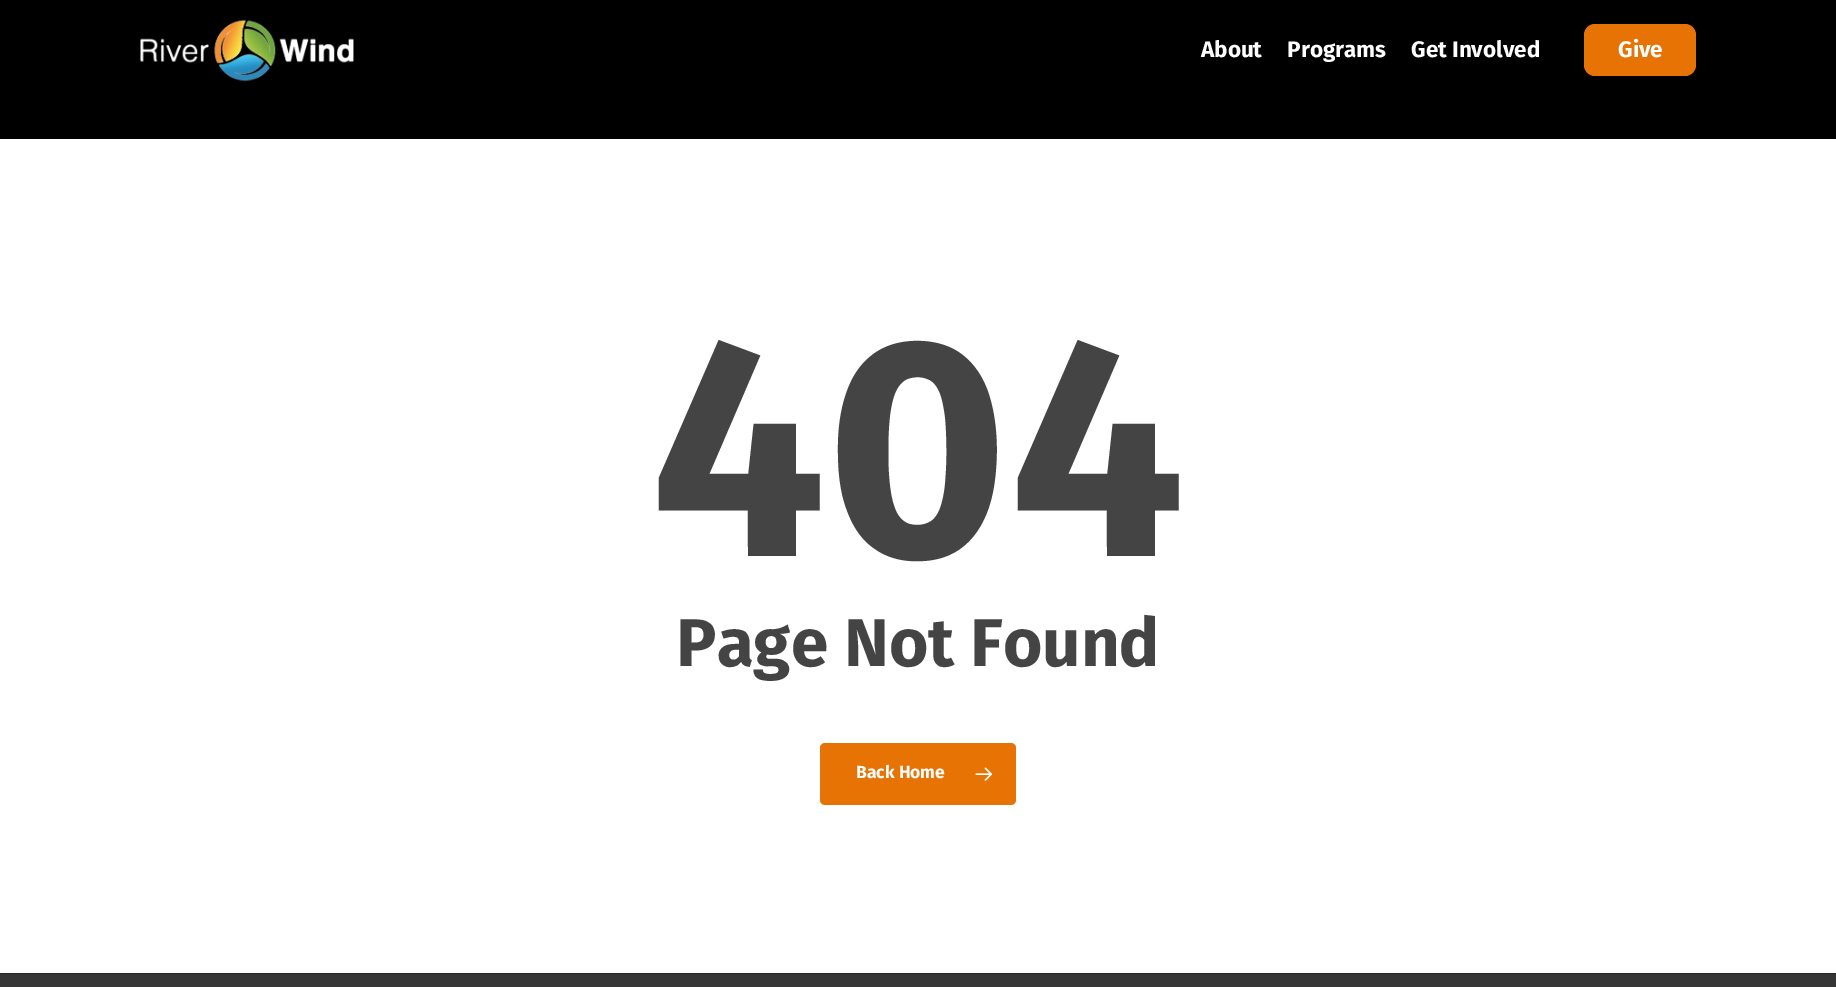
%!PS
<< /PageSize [1836 987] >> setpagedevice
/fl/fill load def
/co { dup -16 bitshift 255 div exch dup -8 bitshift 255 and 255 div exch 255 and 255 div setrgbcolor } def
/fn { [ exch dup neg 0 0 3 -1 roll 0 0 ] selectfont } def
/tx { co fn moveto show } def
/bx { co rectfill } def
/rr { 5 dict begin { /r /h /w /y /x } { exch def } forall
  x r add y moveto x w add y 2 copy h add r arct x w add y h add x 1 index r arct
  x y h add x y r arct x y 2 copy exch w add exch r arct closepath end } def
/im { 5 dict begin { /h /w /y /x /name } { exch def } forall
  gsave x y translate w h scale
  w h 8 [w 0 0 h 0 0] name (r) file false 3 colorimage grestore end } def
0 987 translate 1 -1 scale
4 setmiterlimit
0 0 1836 987 16#FFFFFF bx
0 0 1836 139 16#000000 bx
(media/1.raw) 140 19 214 63 im
16#E67303 co
1584 24 112 52 11 rr fl
820 743 196 62 5 rr fl
(media/2.raw) 975 767 17 14 im
0 973 1836 1 16#252525 bx
0 974 1836 13 16#363636 bx
(About) 1201 57 /FiraSans-Bold 22.5 16#FFFFFF tx
(Programs) 1287 57 /FiraSans-Bold 22.5 16#FFFFFF tx
(Get Involved) 1411 57 /FiraSans-Bold 22.5 16#FFFFFF tx
(Give) 1618 57 /FiraSans-Bold 22.5 16#FFFFFF tx
(404) 650 556 /FiraSans-Bold 312 16#444444 tx
(Page Not Found) 676 666 /FiraSans-Bold 67.5 16#444444 tx
(Back Home) 856 778 /FiraSans-Bold 17.5 16#FFFFFF tx
showpage
